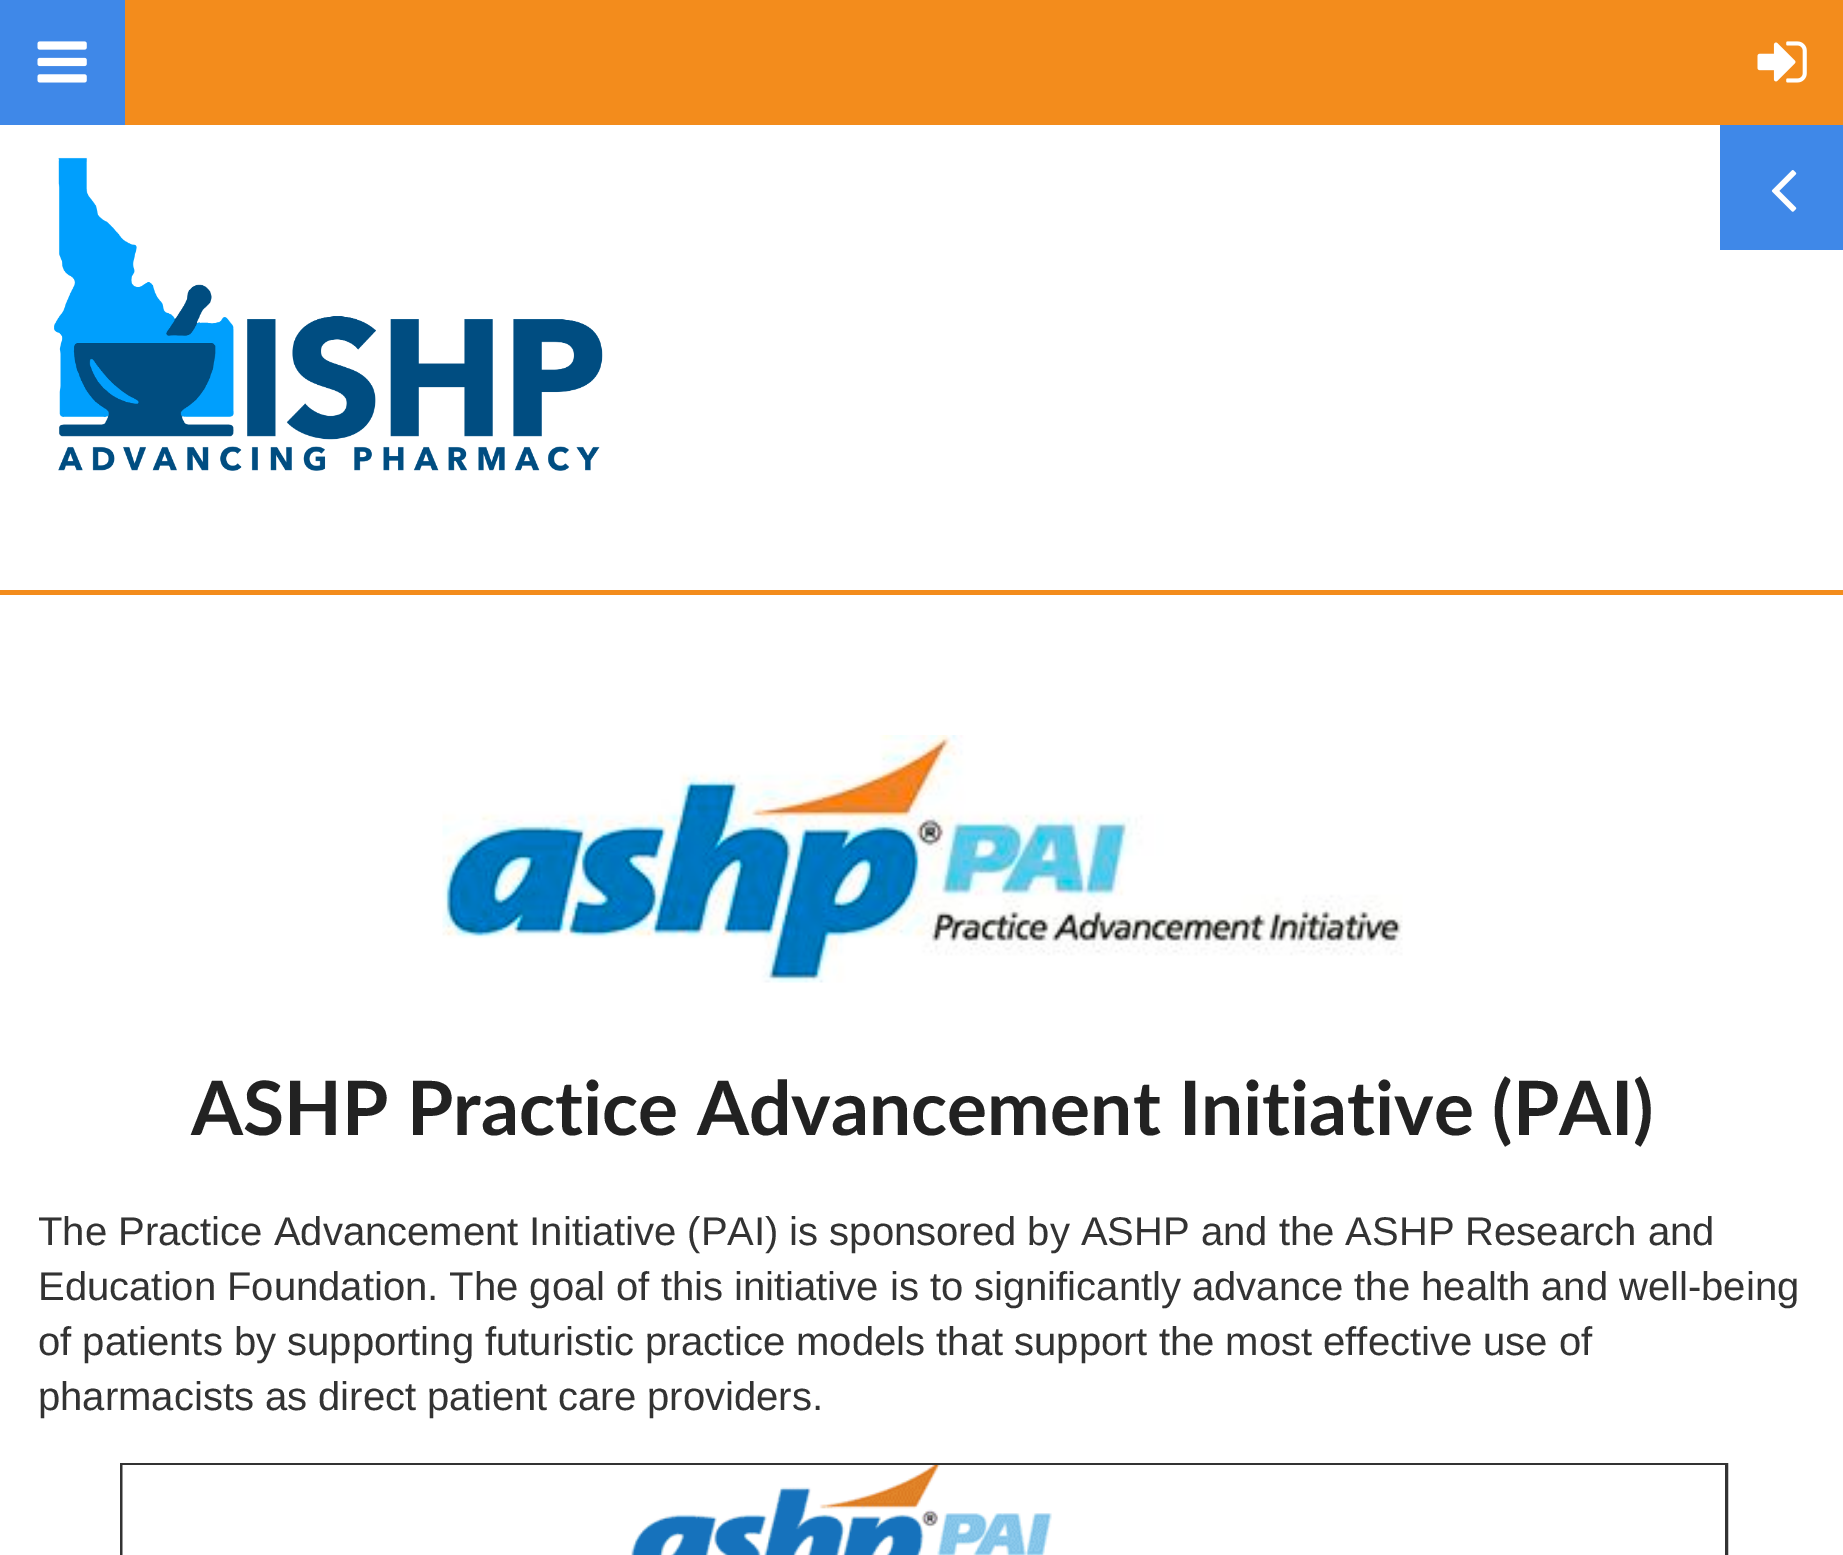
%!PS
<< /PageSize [1843 1555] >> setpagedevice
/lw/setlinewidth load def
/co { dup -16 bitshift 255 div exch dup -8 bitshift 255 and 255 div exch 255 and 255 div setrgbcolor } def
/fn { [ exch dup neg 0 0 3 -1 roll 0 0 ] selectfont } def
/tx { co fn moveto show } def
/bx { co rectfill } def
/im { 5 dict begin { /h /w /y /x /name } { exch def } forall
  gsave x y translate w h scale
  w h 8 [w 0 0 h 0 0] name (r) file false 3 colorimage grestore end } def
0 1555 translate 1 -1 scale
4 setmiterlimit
0 0 1843 1555 16#FFFFFF bx
1720 125 123 125 16#3F88E8 bx
(media/1.raw) 1771 170 26 42 im
125 0 1718 125 16#F38C1C bx
0 0 125 125 16#3F88E8 bx
(media/2.raw) 37 41 50 42 im
(media/3.raw) 1757 41 50 42 im
(media/4.raw) 54 157 549 314 im
0 590 1843 5 16#F38C1C bx
(media/5.raw) 442 735 961 248 im
16#333333 co
3 lw
121.5 1464.5 1605 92 rectstroke
(media/6.raw) 122 1465 1603 90 im
(ASHP Practice Advancement Initiative \(PAI\)) 191 1135 /Lato-Bold 75 16#222222 tx
(The Practice Advancement Initiative \(PAI\) is sponsored by ASHP and the ASHP Research and) 38 1245 /LiberationSans-Regular 40 16#333333 tx
(Education Foundation. The goal of this initiative is to significantly advance the health and well-being) 38 1300 /LiberationSans-Regular 40 16#333333 tx
(of patients by supporting futuristic practice models that support the most effective use of) 38 1355 /LiberationSans-Regular 40 16#333333 tx
(pharmacists as direct patient care providers.) 38 1410 /LiberationSans-Regular 40 16#333333 tx
showpage
